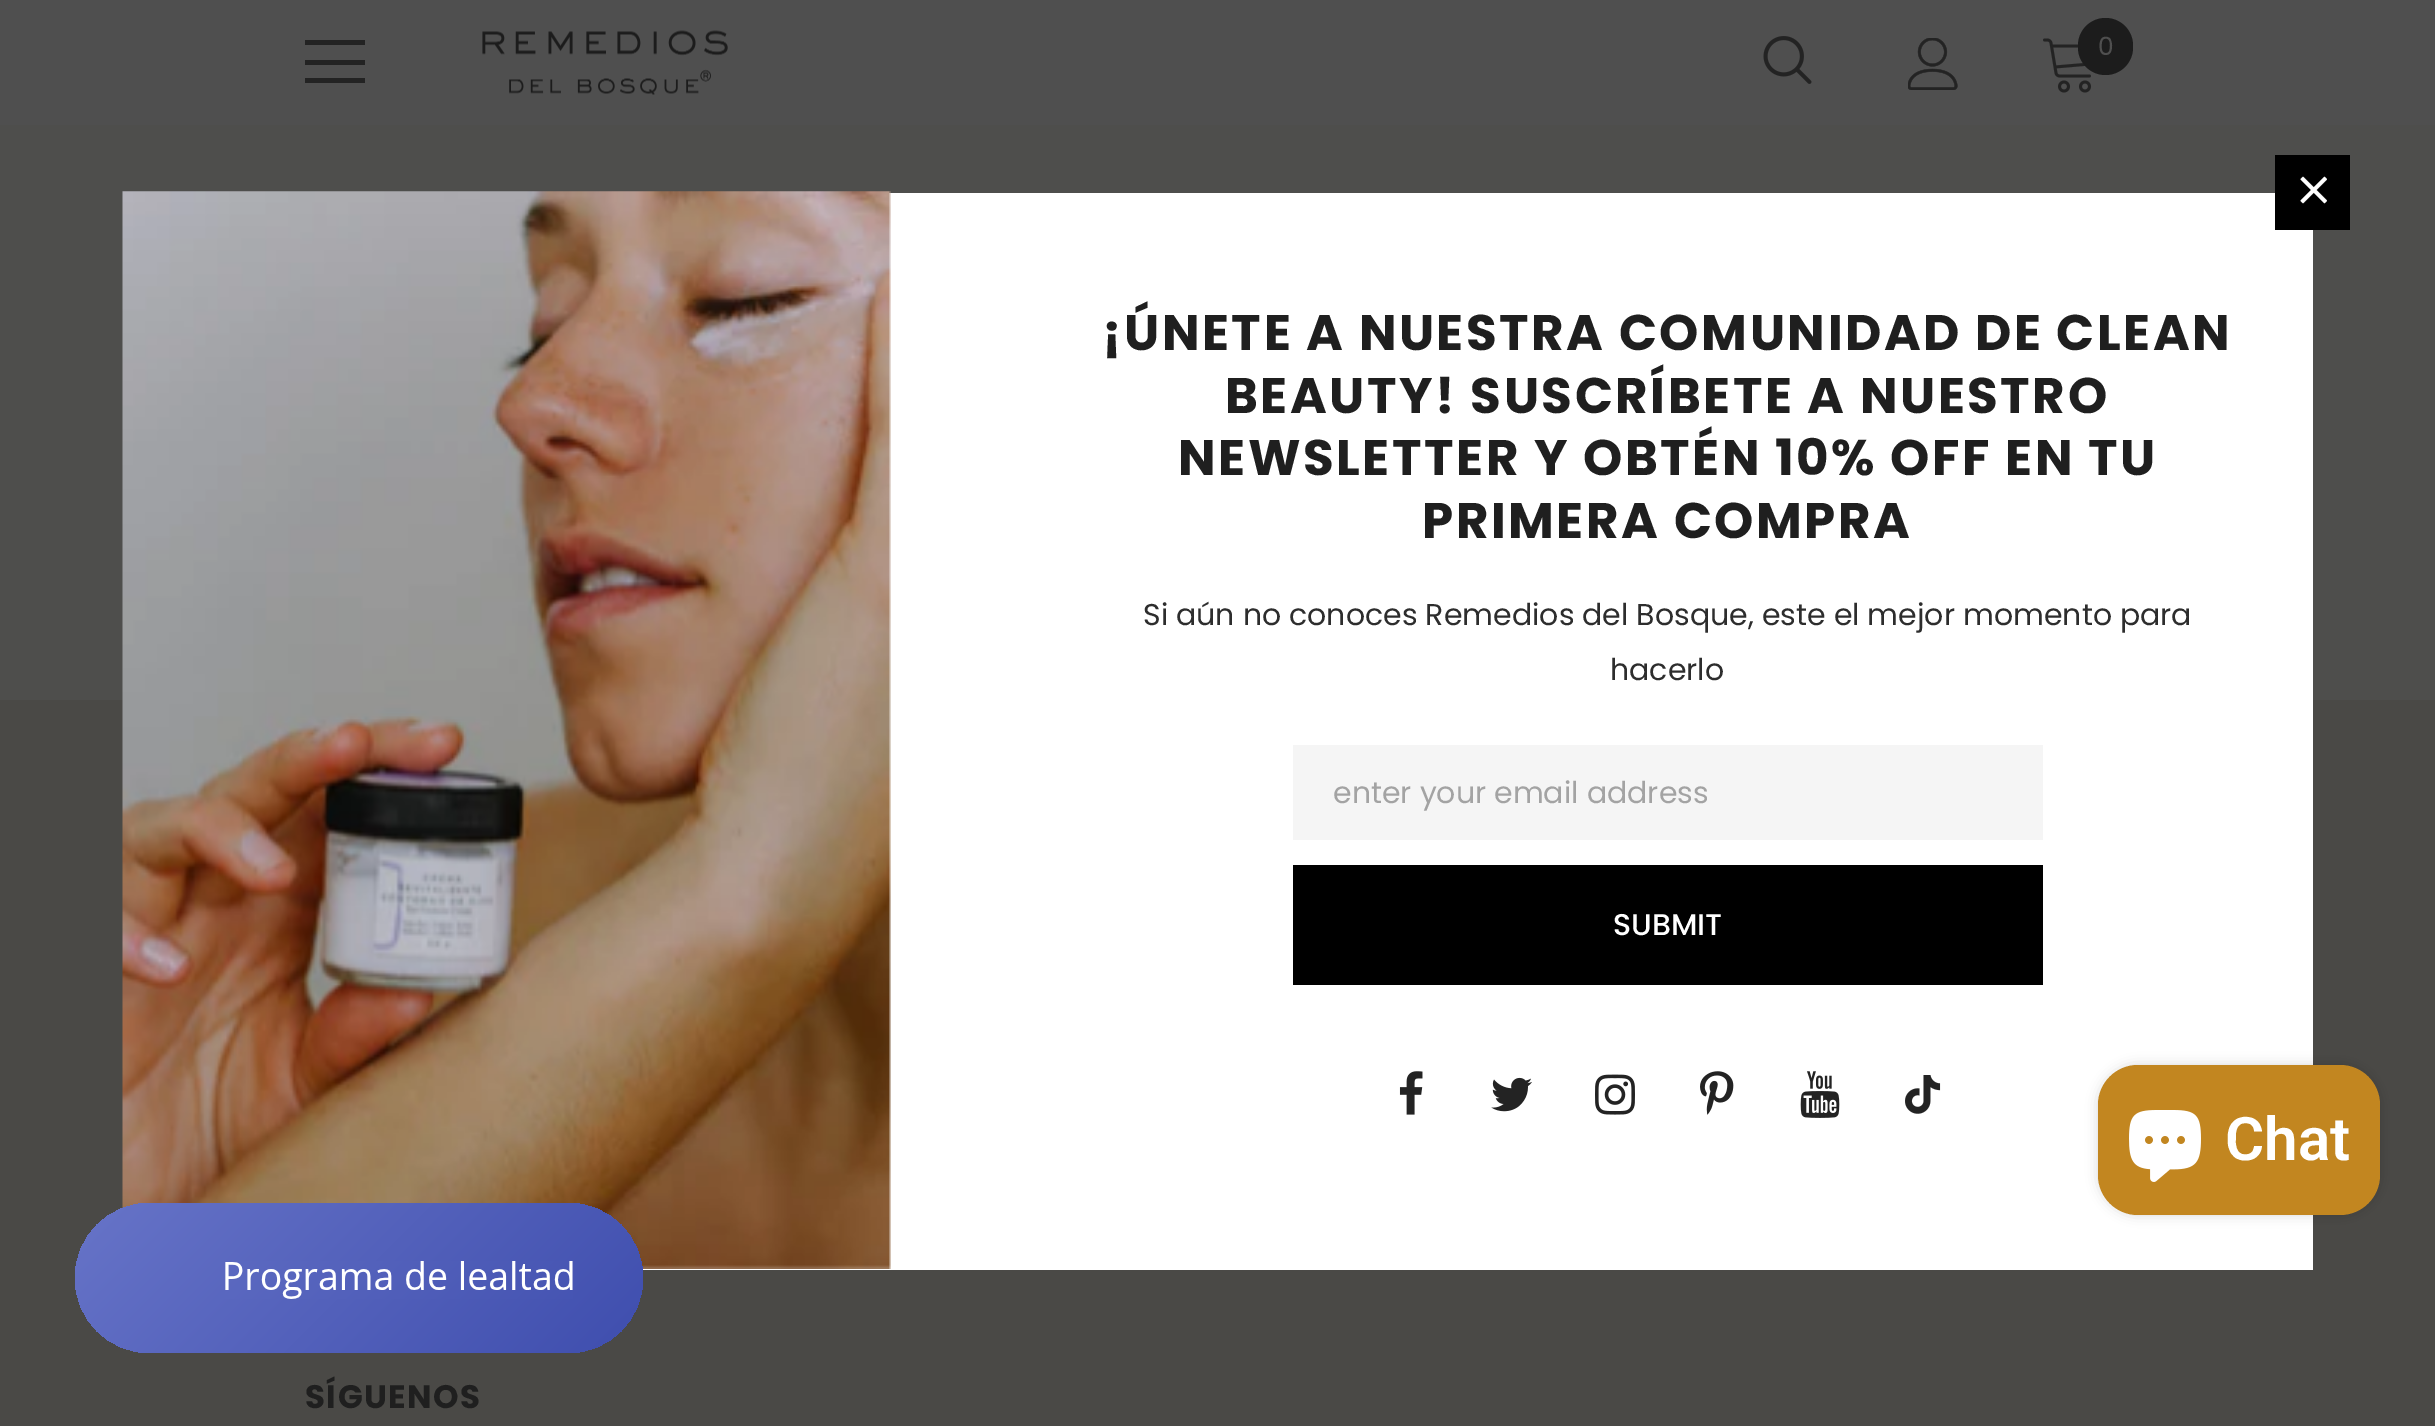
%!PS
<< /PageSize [2435 1426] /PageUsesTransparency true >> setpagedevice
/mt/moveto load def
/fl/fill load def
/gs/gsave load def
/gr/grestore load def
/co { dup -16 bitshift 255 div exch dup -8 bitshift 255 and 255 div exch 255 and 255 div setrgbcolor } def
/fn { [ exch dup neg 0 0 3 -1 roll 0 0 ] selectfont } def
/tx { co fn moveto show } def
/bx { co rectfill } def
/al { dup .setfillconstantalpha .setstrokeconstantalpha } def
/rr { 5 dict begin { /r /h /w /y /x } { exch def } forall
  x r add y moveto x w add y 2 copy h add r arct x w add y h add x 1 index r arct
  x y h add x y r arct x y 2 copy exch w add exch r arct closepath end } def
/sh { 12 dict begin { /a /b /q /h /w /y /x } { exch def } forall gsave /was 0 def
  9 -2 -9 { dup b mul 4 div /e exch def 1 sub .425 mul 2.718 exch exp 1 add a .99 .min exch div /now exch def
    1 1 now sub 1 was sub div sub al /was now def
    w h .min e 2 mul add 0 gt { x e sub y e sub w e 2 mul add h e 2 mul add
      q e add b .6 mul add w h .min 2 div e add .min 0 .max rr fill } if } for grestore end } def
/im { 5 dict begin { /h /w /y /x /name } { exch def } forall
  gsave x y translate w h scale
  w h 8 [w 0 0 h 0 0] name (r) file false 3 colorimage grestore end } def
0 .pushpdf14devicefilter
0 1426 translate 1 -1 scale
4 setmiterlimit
0 0 2435 1426 16#4E4E4C bx
0 0 2435 125 16#4F4F4F bx
305 40 60 5 16#232323 bx
305 60 60 5 16#232323 bx
305 78 60 5 16#232323 bx
(media/1.raw) 482 30 246 65 im
(media/2.raw) 1763 36 49 48 im
(media/3.raw) 1908 38 50 52 im
(media/4.raw) 2043 38 49 55 im
16#1C1C1C co
2078 18 55 57 27.5 rr fl
0 700 2435 726 16#4A4946 bx
641 193 1672 1077 16#FFFFFF bx
2275 155 75 75 16#000000 bx
(media/5.raw) 2300 176 27 28 im
(media/6.raw) 122 191 769 1078 im
1293 745 750 95 16#F5F5F5 bx
1293 865 750 120 16#000000 bx
(media/7.raw) 1399 1071 24 44 im
(media/8.raw) 1491 1077 41 35 im
(media/9.raw) 1595 1074 40 41 im
(media/10.raw) 1700 1071 34 44 im
(media/11.raw) 1800 1071 40 47 im
(media/12.raw) 1905 1075 36 39 im
2098 1065 282 150 40 6 .15 sh
16#C28620 co
2098 1065 282 150 40 rr fl
(media/13.raw) 2129 1110 72 72 im
gs 75 1203 568 150 75 rr clip newpath
<< /ShadingType 2 /ColorSpace /DeviceRGB /Coords [179 1098 538 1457] /Extend [true true] /Function << /FunctionType 2 /Domain [0 1] /C0 [.404 .455 .784] /C1 [.247 .306 .682] /N 1 >> >> shfill gr
(media/14.raw) 225 1261 348 38 im
(0) 2098 55 /Poppins-Regular 25 16#4F4F4F tx
/Poppins-Bold 50 fn
16#1F1F1F co
1102 350 mt 2.5 0 (¡ÚNETE A NUESTRA COMUNIDAD DE CLEAN) ashow
1225 413 mt 2.5 0 (BEAUTY! SUSCRÍBETE A NUESTRO) ashow
1178 475 mt 2.5 0 (NEWSLETTER Y OBTÉN 10% OFF EN TU) ashow
1422 538 mt 2.5 0 (PRIMERA COMPRA) ashow
(Si aún no conoces Remedios del Bosque, este el mejor momento para) 1143 625 /Poppins-Regular 30 16#2D2D2D tx
(hacerlo) 1610 680 /Poppins-Regular 30 16#2D2D2D tx
(enter your email address) 1333 803 /Poppins-Regular 30 16#A3A3A3 tx
(SUBMIT) 1613 935 /Poppins-Medium 30 16#FFFFFF tx
(Chat) 2225 1160 /Roboto-SemiBold 60 16#FFFFFF tx
/Poppins-Bold 32.5 fn
16#1F1F1F co
305 1408 mt 1.5 0 (SÍGUENOS) ashow
.poppdf14devicefilter showpage
